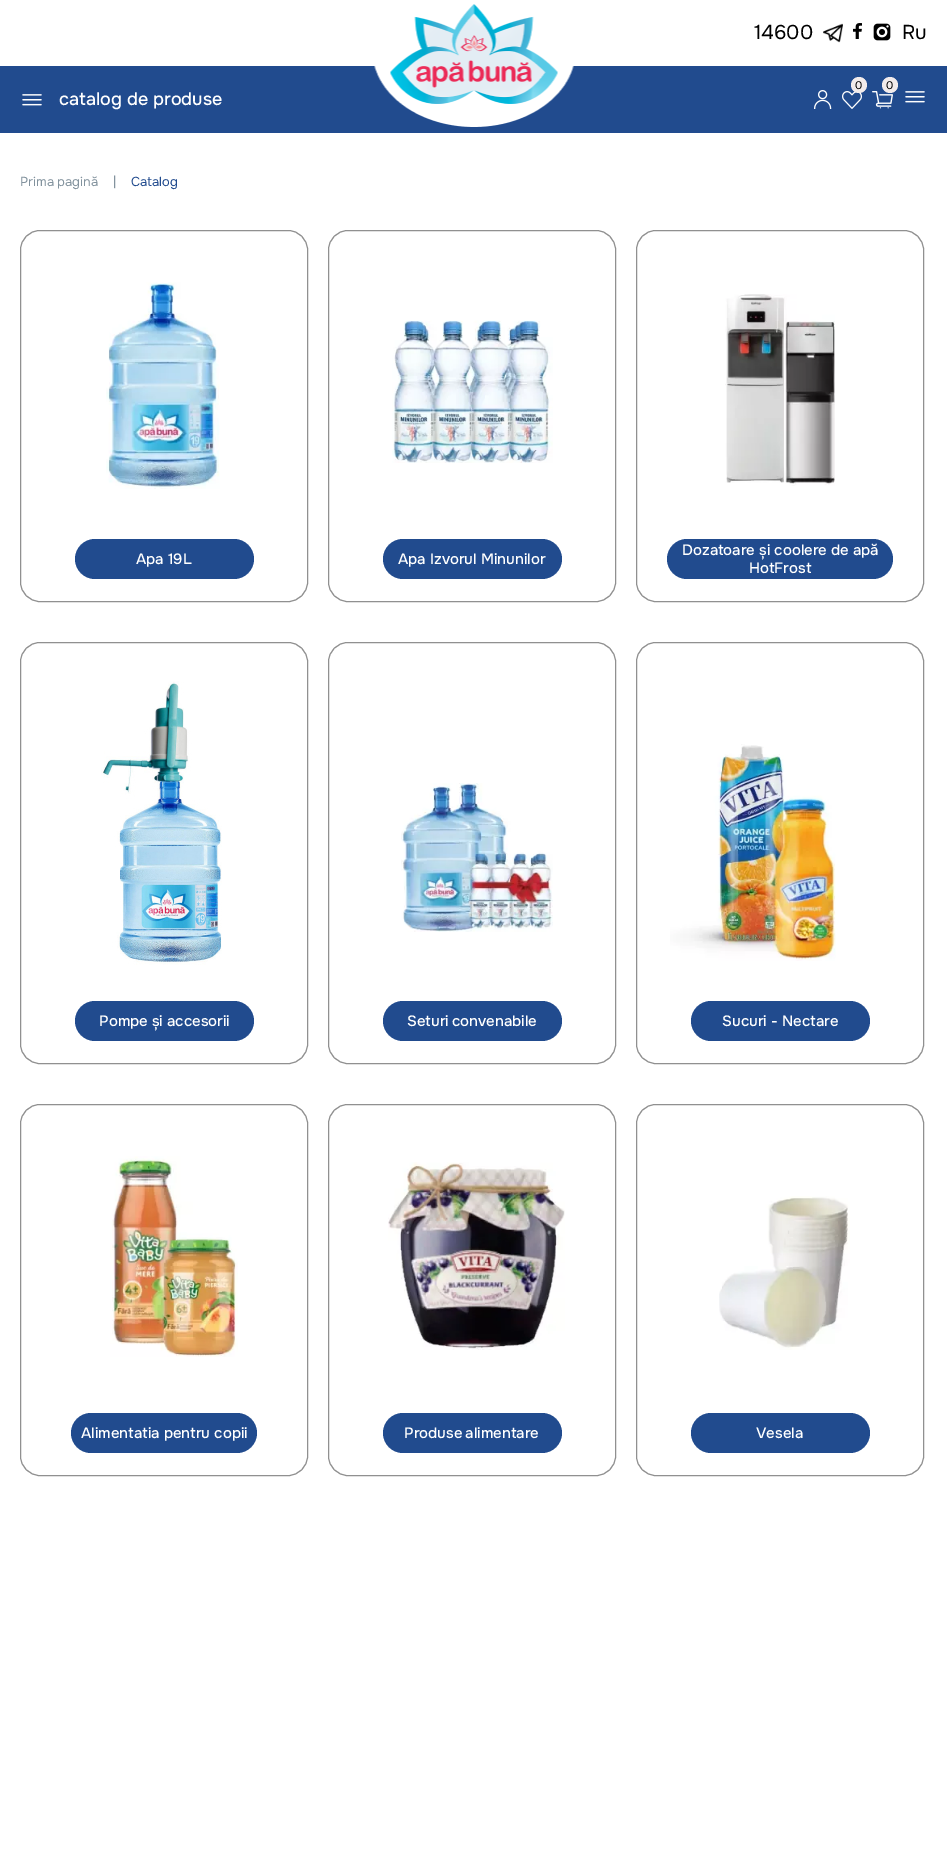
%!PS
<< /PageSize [947 1855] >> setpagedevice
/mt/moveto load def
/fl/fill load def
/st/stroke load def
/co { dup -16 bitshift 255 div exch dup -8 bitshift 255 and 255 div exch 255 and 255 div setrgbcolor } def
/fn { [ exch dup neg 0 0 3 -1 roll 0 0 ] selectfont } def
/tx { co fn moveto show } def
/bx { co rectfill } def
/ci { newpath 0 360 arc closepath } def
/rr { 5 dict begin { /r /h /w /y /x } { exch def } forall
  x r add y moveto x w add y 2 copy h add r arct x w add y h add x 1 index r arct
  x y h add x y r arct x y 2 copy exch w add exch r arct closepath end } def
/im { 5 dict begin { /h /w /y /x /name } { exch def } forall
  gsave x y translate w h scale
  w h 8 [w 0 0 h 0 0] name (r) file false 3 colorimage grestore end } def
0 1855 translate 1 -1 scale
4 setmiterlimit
0 0 947 1855 16#FFFFFF bx
0 66 947 67 16#214B8E bx
(media/1.raw) 374 4 200 123 im
(media/2.raw) 823 23 20 20 im
(media/3.raw) 853 23 9 16 im
(media/4.raw) 873 23 18 18 im
(media/5.raw) 842 91 20 18 im
16#F2EBEB co
859 85 8 ci fl
(media/6.raw) 872 91 21 18 im
890 85 8 ci fl
(media/7.raw) 814 90 18 19 im
(media/8.raw) 905 91 20 12 im
(media/8.raw) 22 94 20 12 im
16#909090 co
20.5 230.5 287 371 19.5 rr st
(media/9.raw) 106 282 114 207 im
16#214B8E co
75 539 179 40 20 rr fl
16#909090 co
328.5 230.5 287 371 19.5 rr st
(media/10.raw) 392 320 161 143 im
16#214B8E co
383 539 179 40 20 rr fl
16#909090 co
636.5 230.5 287 371 19.5 rr st
(media/11.raw) 725 294 110 192 im
16#214B8E co
667 539 226 40 20 rr fl
16#909090 co
20.5 642.5 287 421 19.5 rr st
(media/12.raw) 101 681 121 284 im
16#214B8E co
75 1001 179 40 20 rr fl
16#909090 co
328.5 642.5 287 421 19.5 rr st
(media/13.raw) 401 783 152 149 im
16#214B8E co
383 1001 179 40 20 rr fl
16#909090 co
636.5 642.5 287 421 19.5 rr st
(media/14.raw) 670 744 166 217 im
16#214B8E co
691 1001 179 40 20 rr fl
16#909090 co
20.5 1104.5 287 371 19.5 rr st
(media/15.raw) 110 1156 128 201 im
16#214B8E co
71 1413 186 40 20 rr fl
16#909090 co
328.5 1104.5 287 371 19.5 rr st
(media/16.raw) 388 1162 177 188 im
16#214B8E co
383 1413 179 40 20 rr fl
16#909090 co
636.5 1104.5 287 371 19.5 rr st
(media/17.raw) 719 1196 131 154 im
16#214B8E co
691 1413 179 40 20 rr fl
(14600) 754 39 /Onest-Regular 20 16#000000 tx
(Ru) 902 39 /Onest-Regular 20 16#000000 tx
(0) 855 89 /Onest-Regular 11 16#000000 tx
(0) 886 89 /Onest-Regular 11 16#000000 tx
(catalog de produse) 59 105 /Onest-Medium 18 16#FFFFFF tx
(Prima pagină) 20 186 /Onest-Regular 13 16#83939E tx
(|) 113 186 /Onest-Regular 13 16#83939E tx
(Catalog) 131 186 /Onest-Regular 13 16#214B8E tx
(Apa 19L) 136 564 /Onest-Medium 15 16#FFFFFF tx
(Apa Izvorul Minunilor) 398 564 /Onest-Medium 15 16#FFFFFF tx
(Dozatoare și coolere de apă) 682 555 /Onest-Medium 15 16#FFFFFF tx
(HotFrost) 749 573 /Onest-Medium 15 16#FFFFFF tx
(Pompe și accesorii) 99 1026 /Onest-Medium 15 16#FFFFFF tx
407 1026 mt -1 0 32 (Seturi convenabile) widthshow
(Sucuri - Nectare) 722 1026 /Onest-Medium 15 16#FFFFFF tx
(Alimentatia pentru copii) 81 1438 /Onest-Medium 15 16#FFFFFF tx
404 1438 mt -1 0 32 (Produse alimentare) widthshow
(Vesela) 756 1438 /Onest-Medium 15 16#FFFFFF tx
showpage
